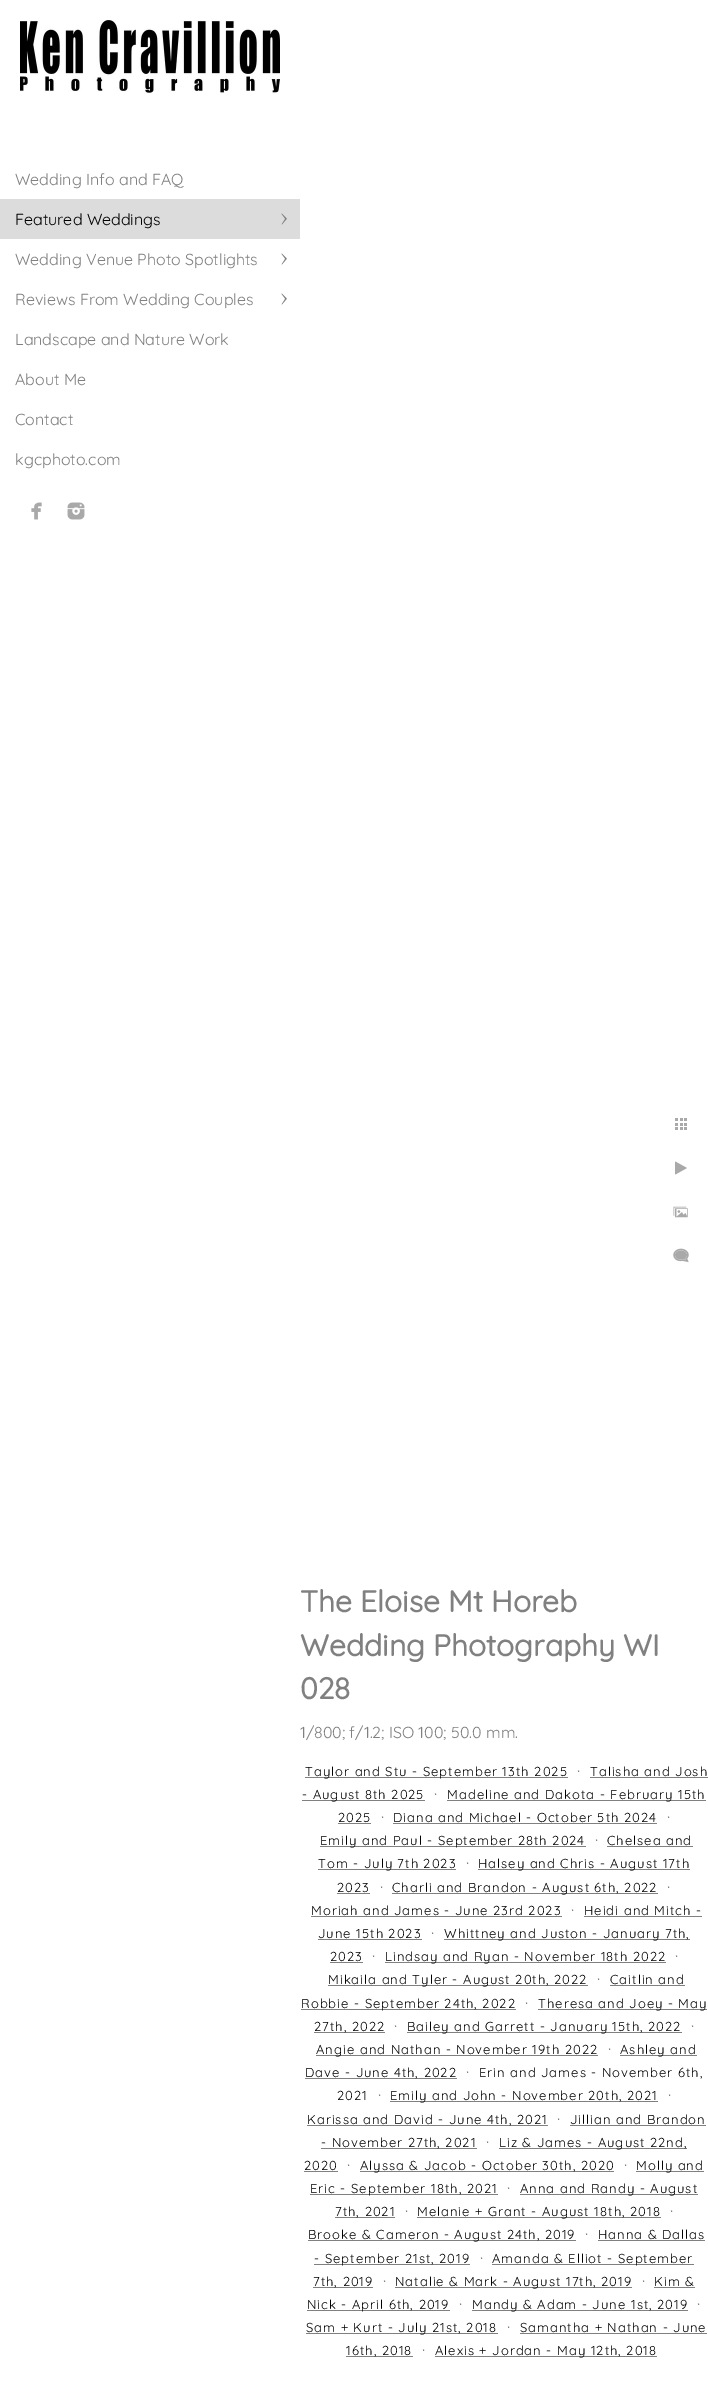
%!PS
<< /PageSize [708 2400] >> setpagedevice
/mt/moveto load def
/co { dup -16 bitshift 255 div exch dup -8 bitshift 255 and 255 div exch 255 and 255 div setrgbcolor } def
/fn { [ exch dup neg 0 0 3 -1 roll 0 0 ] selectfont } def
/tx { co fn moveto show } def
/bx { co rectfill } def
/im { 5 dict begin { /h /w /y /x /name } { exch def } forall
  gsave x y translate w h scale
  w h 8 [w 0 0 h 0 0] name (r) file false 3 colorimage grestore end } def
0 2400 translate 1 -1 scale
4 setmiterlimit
0 0 708 2400 16#FFFFFF bx
(media/1.raw) 20 20 260 74 im
0 199 300 40 16#DCDCDC bx
(media/2.raw) 281 213 6 12 im
(media/3.raw) 281 253 6 12 im
(media/3.raw) 281 293 6 12 im
(media/4.raw) 31 502 11 18 im
(media/5.raw) 67 502 18 18 im
(media/6.raw) 675 1118 12 12 im
(media/7.raw) 675 1161 12 14 im
(media/8.raw) 673 1206 15 12 im
(media/9.raw) 673 1248 16 15 im
305 1777 263 1 16#808080 bx
590 1777 118 1 16#808080 bx
302 1800 123 1 16#808080 bx
447 1800 259 1 16#808080 bx
338 1823 33 1 16#808080 bx
393 1823 264 1 16#808080 bx
320 1846 266 1 16#808080 bx
607 1846 86 1 16#808080 bx
318 1869 138 1 16#808080 bx
478 1869 212 1 16#808080 bx
337 1893 33 1 16#808080 bx
392 1893 266 1 16#808080 bx
311 1916 251 1 16#808080 bx
584 1916 118 1 16#808080 bx
318 1939 104 1 16#808080 bx
444 1939 246 1 16#808080 bx
330 1962 33 1 16#808080 bx
385 1962 281 1 16#808080 bx
328 1985 260 1 16#808080 bx
610 1985 75 1 16#808080 bx
301 2009 215 1 16#808080 bx
538 2009 169 1 16#808080 bx
314 2032 71 1 16#808080 bx
407 2032 275 1 16#808080 bx
316 2055 282 1 16#808080 bx
620 2055 77 1 16#808080 bx
305 2078 152 1 16#808080 bx
390 2101 268 1 16#808080 bx
307 2125 241 1 16#808080 bx
570 2125 136 1 16#808080 bx
321 2148 156 1 16#808080 bx
499 2148 188 1 16#808080 bx
304 2171 34 1 16#808080 bx
360 2171 254 1 16#808080 bx
636 2171 68 1 16#808080 bx
310 2194 188 1 16#808080 bx
520 2194 178 1 16#808080 bx
335 2217 60 1 16#808080 bx
417 2217 244 1 16#808080 bx
308 2240 268 1 16#808080 bx
598 2240 107 1 16#808080 bx
314 2264 156 1 16#808080 bx
492 2264 202 1 16#808080 bx
313 2287 60 1 16#808080 bx
395 2287 237 1 16#808080 bx
654 2287 41 1 16#808080 bx
307 2310 143 1 16#808080 bx
472 2310 216 1 16#808080 bx
306 2333 192 1 16#808080 bx
520 2333 187 1 16#808080 bx
346 2356 67 1 16#808080 bx
435 2356 222 1 16#808080 bx
(Wedding Info and FAQ) 15 185 /Quicksand-Light 16 16#808080 tx
(Featured Weddings) 15 225 /Quicksand-Light 16 16#000000 tx
(Wedding Venue Photo Spotlights) 15 265 /Quicksand-Light 16 16#808080 tx
(Reviews From Wedding Couples) 15 305 /Quicksand-Light 16 16#808080 tx
(Landscape and Nature Work) 15 345 /Quicksand-Light 16 16#808080 tx
(About Me) 15 385 /Quicksand-Light 16 16#808080 tx
(Contact) 15 425 /Quicksand-Light 16 16#808080 tx
(kgcphoto.com) 15 465 /Quicksand-Light 16 16#808080 tx
(The Eloise Mt Horeb) 300 1612 /Quicksand-Bold 30 16#808080 tx
(Wedding Photography WI) 300 1656 /Quicksand-Bold 30 16#808080 tx
(028) 300 1699 /Quicksand-Bold 30 16#808080 tx
(1/800; f/1.2; ISO 100; 50.0 mm.) 300 1738 /Quicksand-Light 16 16#808080 tx
/Quicksand-Light 13 fn
16#000000 co
305 1776 mt 1 0 (Taylor and Stu - September 13th 2025) ashow
(·) 577 1776 /Quicksand-Light 16 16#808080 tx
/Quicksand-Light 13 fn
16#000000 co
590 1776 mt 1 0 (Talisha and Josh) ashow
302 1799 mt 1 0 (- August 8th 2025) ashow
(·) 434 1799 /Quicksand-Light 16 16#808080 tx
/Quicksand-Light 13 fn
16#000000 co
447 1799 mt 1 0 (Madeline and Dakota - February 15th) ashow
338 1822 mt 1 0 (2025) ashow
(·) 381 1822 /Quicksand-Light 16 16#808080 tx
/Quicksand-Light 13 fn
16#000000 co
393 1822 mt 1 0 (Diana and Michael - October 5th 2024) ashow
(·) 667 1822 /Quicksand-Light 16 16#808080 tx
/Quicksand-Light 13 fn
16#000000 co
320 1845 mt 1 0 (Emily and Paul - September 28th 2024) ashow
(·) 595 1845 /Quicksand-Light 16 16#808080 tx
/Quicksand-Light 13 fn
16#000000 co
607 1845 mt 1 0 (Chelsea and) ashow
318 1868 mt 1 0 (Tom - July 7th 2023) ashow
(·) 466 1868 /Quicksand-Light 16 16#808080 tx
/Quicksand-Light 13 fn
16#000000 co
478 1868 mt 1 0 (Halsey and Chris - August 17th) ashow
337 1892 mt 1 0 (2023) ashow
(·) 380 1892 /Quicksand-Light 16 16#808080 tx
/Quicksand-Light 13 fn
16#000000 co
392 1892 mt 1 0 (Charli and Brandon - August 6th, 2022) ashow
(·) 667 1892 /Quicksand-Light 16 16#808080 tx
/Quicksand-Light 13 fn
16#000000 co
311 1915 mt 1 0 (Moriah and James - June 23rd 2023) ashow
(·) 571 1915 /Quicksand-Light 16 16#808080 tx
/Quicksand-Light 13 fn
16#000000 co
584 1915 mt 1 0 (Heidi and Mitch -) ashow
318 1938 mt 1 0 (June 15th 2023) ashow
(·) 431 1938 /Quicksand-Light 16 16#808080 tx
/Quicksand-Light 13 fn
16#000000 co
444 1938 mt 1 0 (Whittney and Juston - January 7th,) ashow
330 1961 mt 1 0 (2023) ashow
(·) 372 1961 /Quicksand-Light 16 16#808080 tx
/Quicksand-Light 13 fn
16#000000 co
385 1961 mt 1 0 (Lindsay and Ryan - November 18th 2022) ashow
(·) 675 1961 /Quicksand-Light 16 16#808080 tx
/Quicksand-Light 13 fn
16#000000 co
328 1984 mt 1 0 (Mikaila and Tyler - August 20th, 2022) ashow
(·) 597 1984 /Quicksand-Light 16 16#808080 tx
/Quicksand-Light 13 fn
16#000000 co
610 1984 mt 1 0 (Caitlin and) ashow
301 2008 mt 1 0 (Robbie - September 24th, 2022) ashow
(·) 525 2008 /Quicksand-Light 16 16#808080 tx
/Quicksand-Light 13 fn
16#000000 co
538 2008 mt 1 0 (Theresa and Joey - May) ashow
314 2031 mt 1 0 (27th, 2022) ashow
(·) 394 2031 /Quicksand-Light 16 16#808080 tx
/Quicksand-Light 13 fn
16#000000 co
407 2031 mt 1 0 (Bailey and Garrett - January 15th, 2022) ashow
(·) 691 2031 /Quicksand-Light 16 16#808080 tx
/Quicksand-Light 13 fn
16#000000 co
316 2054 mt 1 0 (Angie and Nathan - November 19th 2022) ashow
(·) 608 2054 /Quicksand-Light 16 16#808080 tx
/Quicksand-Light 13 fn
16#000000 co
620 2054 mt 1 0 (Ashley and) ashow
305 2077 mt 1 0 (Dave - June 4th, 2022) ashow
(·) 466 2077 /Quicksand-Light 16 16#808080 tx
/Quicksand-Light 13 fn
16#000000 co
479 2077 mt 1 0 (Erin and James - November 6th,) ashow
337 2100 mt 1 0 (2021) ashow
(·) 378 2100 /Quicksand-Light 16 16#808080 tx
/Quicksand-Light 13 fn
16#000000 co
390 2100 mt 1 0 (Emily and John - November 20th, 2021) ashow
(·) 668 2100 /Quicksand-Light 16 16#808080 tx
/Quicksand-Light 13 fn
16#000000 co
307 2124 mt 1 0 (Karissa and David - June 4th, 2021) ashow
(·) 557 2124 /Quicksand-Light 16 16#808080 tx
/Quicksand-Light 13 fn
16#000000 co
570 2124 mt 1 0 (Jillian and Brandon) ashow
321 2147 mt 1 0 (- November 27th, 2021) ashow
(·) 486 2147 /Quicksand-Light 16 16#808080 tx
/Quicksand-Light 13 fn
16#000000 co
499 2147 mt 1 0 (Liz & James - August 22nd,) ashow
304 2170 mt 1 0 (2020) ashow
(·) 347 2170 /Quicksand-Light 16 16#808080 tx
/Quicksand-Light 13 fn
16#000000 co
360 2170 mt 1 0 (Alyssa & Jacob - October 30th, 2020) ashow
(·) 624 2170 /Quicksand-Light 16 16#808080 tx
/Quicksand-Light 13 fn
16#000000 co
636 2170 mt 1 0 (Molly and) ashow
310 2193 mt 1 0 (Eric - September 18th, 2021) ashow
(·) 507 2193 /Quicksand-Light 16 16#808080 tx
/Quicksand-Light 13 fn
16#000000 co
520 2193 mt 1 0 (Anna and Randy - August) ashow
335 2216 mt 1 0 (7th, 2021) ashow
(·) 405 2216 /Quicksand-Light 16 16#808080 tx
/Quicksand-Light 13 fn
16#000000 co
417 2216 mt 1 0 (Melanie + Grant - August 18th, 2018) ashow
(·) 670 2216 /Quicksand-Light 16 16#808080 tx
/Quicksand-Light 13 fn
16#000000 co
308 2239 mt 1 0 (Brooke & Cameron - August 24th, 2019) ashow
(·) 585 2239 /Quicksand-Light 16 16#808080 tx
/Quicksand-Light 13 fn
16#000000 co
598 2239 mt 1 0 (Hanna & Dallas) ashow
314 2263 mt 1 0 (- September 21st, 2019) ashow
(·) 480 2263 /Quicksand-Light 16 16#808080 tx
/Quicksand-Light 13 fn
16#000000 co
492 2263 mt 1 0 (Amanda & Elliot - September) ashow
313 2286 mt 1 0 (7th, 2019) ashow
(·) 383 2286 /Quicksand-Light 16 16#808080 tx
/Quicksand-Light 13 fn
16#000000 co
395 2286 mt 1 0 (Natalie & Mark - August 17th, 2019) ashow
(·) 642 2286 /Quicksand-Light 16 16#808080 tx
/Quicksand-Light 13 fn
16#000000 co
654 2286 mt 1 0 (Kim &) ashow
307 2309 mt 1 0 (Nick - April 6th, 2019) ashow
(·) 459 2309 /Quicksand-Light 16 16#808080 tx
/Quicksand-Light 13 fn
16#000000 co
472 2309 mt 1 0 (Mandy & Adam - June 1st, 2019) ashow
(·) 697 2309 /Quicksand-Light 16 16#808080 tx
/Quicksand-Light 13 fn
16#000000 co
306 2332 mt 1 0 (Sam + Kurt - July 21st, 2018) ashow
(·) 507 2332 /Quicksand-Light 16 16#808080 tx
/Quicksand-Light 13 fn
16#000000 co
520 2332 mt 1 0 (Samantha + Nathan - June) ashow
346 2355 mt 1 0 (16th, 2018) ashow
(·) 422 2355 /Quicksand-Light 16 16#808080 tx
/Quicksand-Light 13 fn
16#000000 co
435 2355 mt 1 0 (Alexis + Jordan - May 12th, 2018) ashow
showpage
